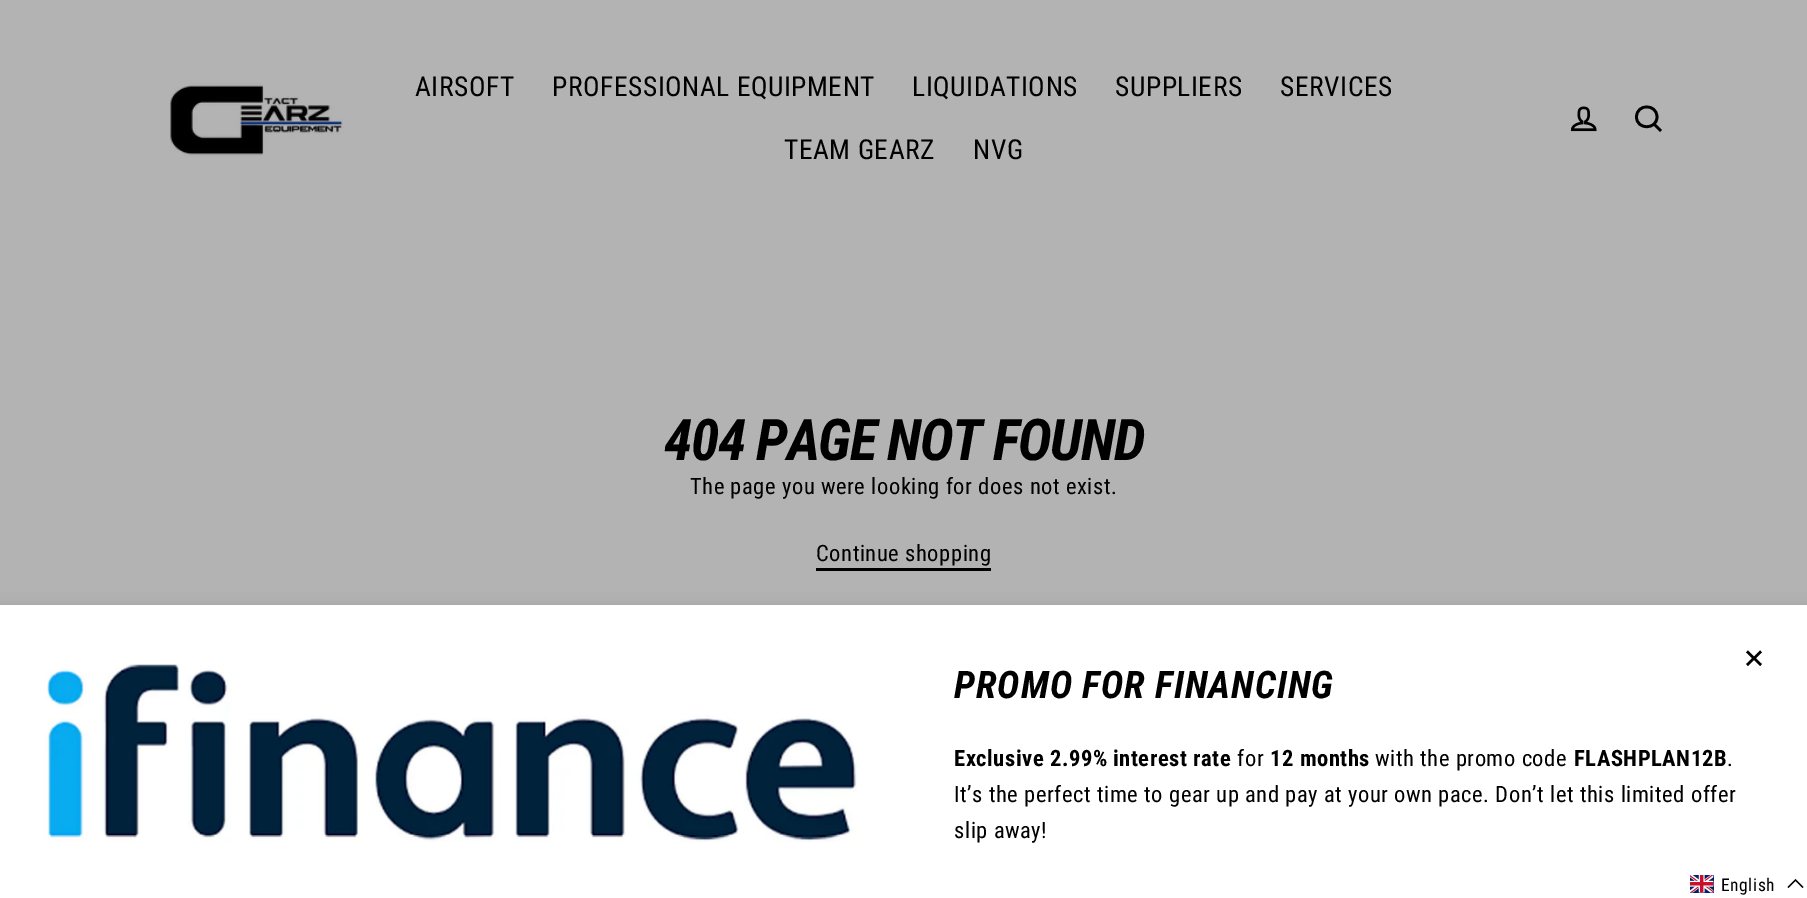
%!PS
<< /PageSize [1807 898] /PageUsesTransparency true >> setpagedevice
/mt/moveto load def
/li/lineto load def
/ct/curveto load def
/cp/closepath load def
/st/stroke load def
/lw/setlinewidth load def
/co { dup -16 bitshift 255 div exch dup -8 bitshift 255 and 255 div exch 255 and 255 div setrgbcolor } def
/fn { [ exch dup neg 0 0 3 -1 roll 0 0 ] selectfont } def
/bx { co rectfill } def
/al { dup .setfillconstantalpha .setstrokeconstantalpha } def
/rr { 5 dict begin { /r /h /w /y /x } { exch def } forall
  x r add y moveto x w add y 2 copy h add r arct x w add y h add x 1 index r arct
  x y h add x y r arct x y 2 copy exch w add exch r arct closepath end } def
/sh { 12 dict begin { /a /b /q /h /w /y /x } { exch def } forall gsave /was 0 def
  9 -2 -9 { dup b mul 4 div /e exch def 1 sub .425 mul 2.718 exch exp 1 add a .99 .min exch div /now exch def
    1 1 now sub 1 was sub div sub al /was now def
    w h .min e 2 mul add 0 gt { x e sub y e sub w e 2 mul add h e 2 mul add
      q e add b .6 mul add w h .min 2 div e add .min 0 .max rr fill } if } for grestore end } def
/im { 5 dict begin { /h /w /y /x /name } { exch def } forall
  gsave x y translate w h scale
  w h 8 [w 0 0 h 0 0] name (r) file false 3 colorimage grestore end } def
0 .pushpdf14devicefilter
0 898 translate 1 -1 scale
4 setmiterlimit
0 0 1807 898 16#B3B3B3 bx
(media/1.raw) 170 83 173 74 im
(media/2.raw) 1570 106 27 26 im
16#000000 co
2.7 lw
1657 117 mt 1657 130 1636.5 130 1636.5 117 ct 1636.5 103.5 1657 103.5 1657 117 ct cp 1661 131 mt 1654 124 li st
816 568 175 3 16#000000 bx
0 605 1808 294 0 6 .1 sh
0 605 1807 293 16#FFFFFF bx
16#000000 co
2.5 lw
1747 651.5 mt 1761 665 li 1761 651.5 mt 1747 665 li st
(media/3.raw) 44 664 817 178 im
(media/4.raw) 1690 875 24 18 im
1.2 lw
1803 887.5 mt 1795.5 880 li 1788 887.5 li st
/RobotoCondensed-Regular 27.5 fn
415 96 mt .55 0 (AIRSOFT) ashow
552 96 mt .55 0 (PROFESSIONAL EQUIPMENT) ashow
912 96 mt .55 0 (LIQUIDATIONS) ashow
1115 96 mt .55 0 (SUPPLIERS) ashow
1280 96 mt .55 0 (SERVICES) ashow
784 159 mt .55 0 (TEAM GEARZ) ashow
973 159 mt .55 0 (NVG) ashow
/RobotoCondensed-BoldItalic 57.5 fn
664 460 mt -1.4 0 (404 PAGE NOT FOUND) ashow
/RobotoCondensed-Regular 22.5 fn
690 494 mt .55 0 (The page you were looking for does not exist.) ashow
816 561 mt .55 0 (Continue shopping) ashow
/RobotoCondensed-BoldItalic 38 fn
954 698 mt 1 0 (PROMO FOR FINANCING) ashow
/RobotoCondensed-Bold 22.5 fn
954 766 mt .55 0 (Exclusive 2.99% interest rate) ashow
/RobotoCondensed-Regular 22.5 fn
1237 766 mt .55 0 (for) ashow
/RobotoCondensed-Bold 22.5 fn
1270 766 mt .55 0 (12 months) ashow
/RobotoCondensed-Regular 22.5 fn
1375 766 mt .55 0 (with the promo code) ashow
/RobotoCondensed-Bold 22.5 fn
1574 766 mt .55 0 (FLASHPLAN12B) ashow
/RobotoCondensed-Regular 22.5 fn
1727 766 mt .55 0 (.) ashow
954 802 mt .55 0 (It’s the perfect time to gear up and pay at your own pace. Don’t let this limited offer) ashow
954 838 mt .55 0 (slip away!) ashow
/RobotoCondensed-Regular 17.5 fn
1721 891 mt .55 0 (English) ashow
.poppdf14devicefilter showpage
